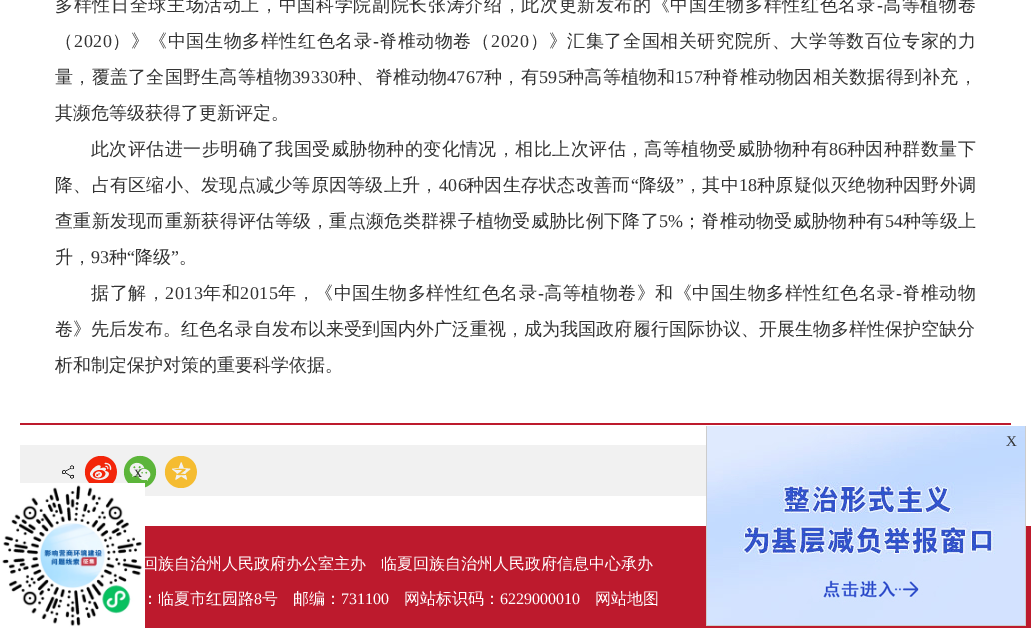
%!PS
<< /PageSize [1031 628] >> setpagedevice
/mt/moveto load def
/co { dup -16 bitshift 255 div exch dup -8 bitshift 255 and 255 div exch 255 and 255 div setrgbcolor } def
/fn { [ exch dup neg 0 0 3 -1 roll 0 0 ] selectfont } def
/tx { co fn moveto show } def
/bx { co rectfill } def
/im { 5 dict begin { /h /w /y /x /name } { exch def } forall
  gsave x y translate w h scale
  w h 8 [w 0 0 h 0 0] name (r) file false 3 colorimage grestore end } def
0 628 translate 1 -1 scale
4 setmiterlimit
0 0 1031 628 16#BD1A2D bx
0 0 1031 526 16#FFFFFF bx
20 423 991 2 16#BD1A2D bx
20 445 686 51 16#F1F1F1 bx
(media/1.raw) 62 465 12 14 im
(media/2.raw) 84 456 33 27 im
(media/3.raw) 123 455 34 33 im
(media/4.raw) 164 456 33 32 im
1025 426 1 200 16#CCCCCC bx
706 625 320 1 16#CCCCCC bx
706 426 1 200 16#CCCCCC bx
(media/5.raw) 707 426 318 199 im
/WenQuanYiZenHei-Medium 18 fn
16#333333 co
55 11 mt .65 0 (多样性日全球主场活动上，中国科学院副院长张涛介绍，此次更新发布的《中国生物多样性红色名录) ashow
/LiberationSerif-Regular 18 fn
877 11 mt .65 0 (-) ashow
/WenQuanYiZenHei-Medium 18 fn
883 11 mt .65 0 (高等植物卷) ashow
55 47 mt .6 0 (（) ashow
/LiberationSerif-Regular 18 fn
74 47 mt .6 0 (2020) ashow
/WenQuanYiZenHei-Medium 18 fn
112 47 mt .6 0 (）》《中国生物多样性红色名录) ashow
/LiberationSerif-Regular 18 fn
373 47 mt .6 0 (-) ashow
/WenQuanYiZenHei-Medium 18 fn
379 47 mt .6 0 (脊椎动物卷（) ashow
/LiberationSerif-Regular 18 fn
491 47 mt .6 0 (2020) ashow
/WenQuanYiZenHei-Medium 18 fn
530 47 mt .6 0 (）》汇集了全国相关研究院所、大学等数百位专家的力) ashow
55 83 mt .25 0 (量，覆盖了全国野生高等植物) ashow
/LiberationSerif-Regular 18 fn
292 83 mt .25 0 (39330) ashow
/WenQuanYiZenHei-Medium 18 fn
338 83 mt .25 0 (种、脊椎动物) ashow
/LiberationSerif-Regular 18 fn
447 83 mt .25 0 (4767) ashow
/WenQuanYiZenHei-Medium 18 fn
484 83 mt .25 0 (种，有) ashow
/LiberationSerif-Regular 18 fn
539 83 mt .25 0 (595) ashow
/WenQuanYiZenHei-Medium 18 fn
566 83 mt .25 0 (种高等植物和) ashow
/LiberationSerif-Regular 18 fn
675 83 mt .25 0 (157) ashow
/WenQuanYiZenHei-Medium 18 fn
703 83 mt .25 0 (种脊椎动物因相关数据得到补充，) ashow
(其濒危等级获得了更新评定。) 55 119 /WenQuanYiZenHei-Medium 18 16#333333 tx
91 155 mt .45 0 (此次评估进一步明确了我国受威胁物种的变化情况，相比上次评估，高等植物受威胁物种有) ashow
/LiberationSerif-Regular 18 fn
829 155 mt .45 0 (86) ashow
/WenQuanYiZenHei-Medium 18 fn
847 155 mt .45 0 (种因种群数量下) ashow
55 191 mt .25 0 (降、占有区缩小、发现点减少等原因等级上升，) ashow
/LiberationSerif-Regular 18 fn
439 191 mt .25 0 (406) ashow
/WenQuanYiZenHei-Medium 18 fn
466 191 mt .25 0 (种因生存状态改善而) ashow
/LiberationSerif-Regular 18 fn
631 191 mt .25 0 (“) ashow
/WenQuanYiZenHei-Medium 18 fn
639 191 mt .25 0 (降级) ashow
/LiberationSerif-Regular 18 fn
676 191 mt .25 0 (”) ashow
/WenQuanYiZenHei-Medium 18 fn
684 191 mt .25 0 (，其中) ashow
/LiberationSerif-Regular 18 fn
739 191 mt .25 0 (18) ashow
/WenQuanYiZenHei-Medium 18 fn
757 191 mt .25 0 (种原疑似灭绝物种因野外调) ashow
55 227 mt .3 0 (查重新发现而重新获得评估等级，重点濒危类群裸子植物受威胁比例下降了) ashow
/LiberationSerif-Regular 18 fn
659 227 mt .3 0 (5%) ashow
/WenQuanYiZenHei-Medium 18 fn
683 227 mt .3 0 (；脊椎动物受威胁物种有) ashow
/LiberationSerif-Regular 18 fn
885 227 mt .3 0 (54) ashow
/WenQuanYiZenHei-Medium 18 fn
903 227 mt .3 0 (种等级上) ashow
(升，) 55 263 /WenQuanYiZenHei-Medium 18 16#333333 tx
(93) 91 263 /LiberationSerif-Regular 18 16#333333 tx
(种) 109 263 /WenQuanYiZenHei-Medium 18 16#333333 tx
(“) 127 263 /LiberationSerif-Regular 18 16#333333 tx
(降级) 135 263 /WenQuanYiZenHei-Medium 18 16#333333 tx
(”) 171 263 /LiberationSerif-Regular 18 16#333333 tx
(。) 179 263 /WenQuanYiZenHei-Medium 18 16#333333 tx
91 299 mt .5 0 (据了解，) ashow
/LiberationSerif-Regular 18 fn
165 299 mt .5 0 (2013) ashow
/WenQuanYiZenHei-Medium 18 fn
203 299 mt .5 0 (年和) ashow
/LiberationSerif-Regular 18 fn
240 299 mt .5 0 (2015) ashow
/WenQuanYiZenHei-Medium 18 fn
278 299 mt .5 0 (年，《中国生物多样性红色名录) ashow
/LiberationSerif-Regular 18 fn
538 299 mt .5 0 (-) ashow
/WenQuanYiZenHei-Medium 18 fn
544 299 mt .5 0 (高等植物卷》和《中国生物多样性红色名录) ashow
/LiberationSerif-Regular 18 fn
896 299 mt .5 0 (-) ashow
/WenQuanYiZenHei-Medium 18 fn
902 299 mt .5 0 (脊椎动物) ashow
55 335 mt .05 0 (卷》先后发布。红色名录自发布以来受到国内外广泛重视，成为我国政府履行国际协议、开展生物多样性保护空缺分) ashow
(析和制定保护对策的重要科学依据。) 55 371 /WenQuanYiZenHei-Medium 18 16#333333 tx
(X) 1006 446 /LiberationSerif-Regular 15 16#333333 tx
(x) 134 477 /LiberationSerif-Regular 16 16#333333 tx
(回族自治州人民政府办公室主办) 142 569 /WenQuanYiZenHei-Medium 16 16#FFFFFF tx
(media/6.raw) 0 483 145 145 im
(临夏回族自治州人民政府信息中心承办) 381 569 /WenQuanYiZenHei-Medium 16 16#FFFFFF tx
(：临夏市红园路) 142 604 /WenQuanYiZenHei-Medium 16 16#FFFFFF tx
(8) 254 604 /LiberationSerif-Regular 16 16#FFFFFF tx
(号) 262 604 /WenQuanYiZenHei-Medium 16 16#FFFFFF tx
(邮编：) 293 604 /WenQuanYiZenHei-Medium 16 16#FFFFFF tx
(731100) 341 604 /LiberationSerif-Regular 16 16#FFFFFF tx
(网站标识码：) 404 604 /WenQuanYiZenHei-Medium 16 16#FFFFFF tx
(6229000010) 500 604 /LiberationSerif-Regular 16 16#FFFFFF tx
(网站地图) 595 604 /WenQuanYiZenHei-Medium 16 16#FFFFFF tx
showpage
